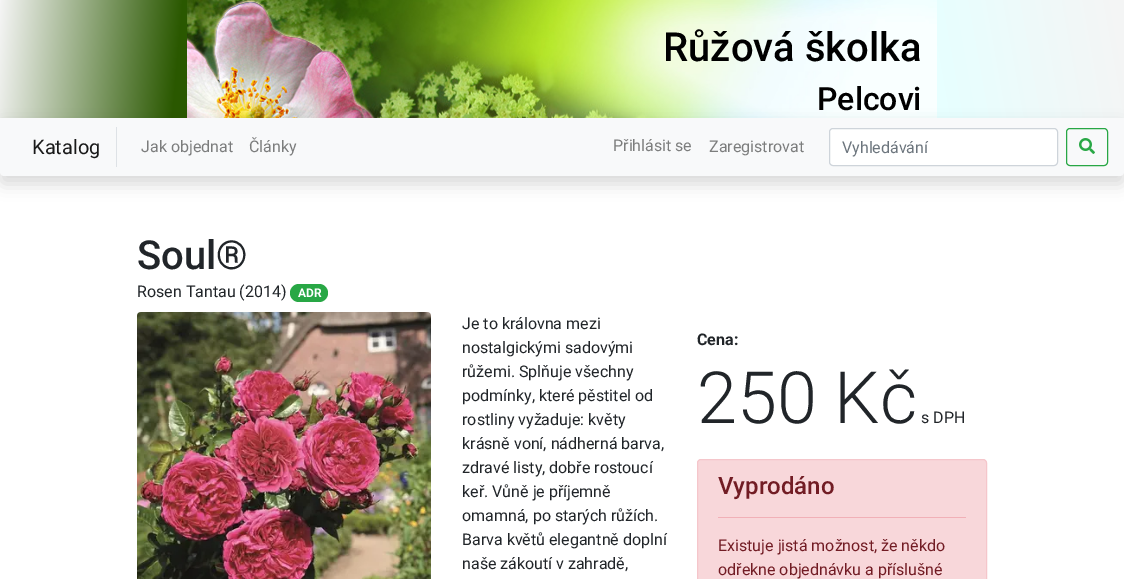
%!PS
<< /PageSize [1124 579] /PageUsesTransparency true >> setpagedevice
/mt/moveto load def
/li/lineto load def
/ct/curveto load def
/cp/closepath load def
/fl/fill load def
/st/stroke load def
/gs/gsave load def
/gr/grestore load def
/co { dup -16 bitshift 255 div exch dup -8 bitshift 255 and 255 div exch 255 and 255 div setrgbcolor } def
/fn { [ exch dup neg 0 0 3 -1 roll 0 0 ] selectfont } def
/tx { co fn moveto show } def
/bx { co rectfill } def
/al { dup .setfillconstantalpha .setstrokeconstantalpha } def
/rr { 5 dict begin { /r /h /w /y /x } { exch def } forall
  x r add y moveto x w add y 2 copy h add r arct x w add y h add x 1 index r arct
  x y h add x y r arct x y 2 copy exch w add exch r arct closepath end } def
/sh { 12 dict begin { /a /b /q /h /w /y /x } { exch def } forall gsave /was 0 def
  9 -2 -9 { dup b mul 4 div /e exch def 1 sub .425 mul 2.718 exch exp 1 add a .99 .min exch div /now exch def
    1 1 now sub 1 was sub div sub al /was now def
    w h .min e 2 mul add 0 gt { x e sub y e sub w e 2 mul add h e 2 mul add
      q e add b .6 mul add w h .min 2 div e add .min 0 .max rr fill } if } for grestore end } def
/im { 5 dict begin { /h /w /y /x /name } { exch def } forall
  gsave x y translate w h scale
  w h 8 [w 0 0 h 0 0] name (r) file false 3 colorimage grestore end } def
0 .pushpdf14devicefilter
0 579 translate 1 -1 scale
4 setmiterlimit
0 0 1124 579 16#FFFFFF bx
gs 0 0 mt 187 0 li 187 118 li 0 118 li cp clip newpath
<< /ShadingType 2 /ColorSpace /DeviceRGB /Coords [-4.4 50 191 68] /Extend [true true] /Function << /FunctionType 3 /Domain [0 1] /Functions [<< /FunctionType 2 /Domain [0 1] /C0 [.961 .961 .961] /C1 [.165 .345 0] /N 1 >> << /FunctionType 2 /Domain [0 1] /C0 [.165 .345 0] /C1 [.165 .345 0] /N 1 >>] /Bounds [.93] /Encode [0 1 0 1] >> >> shfill gr
(media/1.raw) 187 0 750 118 im
gs 937 0 mt 1124 0 li 1124 118 li 937 118 li cp clip newpath
<< /ShadingType 2 /ColorSpace /DeviceRGB /Coords [930 77 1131 41] /Extend [true true] /Function << /FunctionType 3 /Domain [0 1] /Functions [<< /FunctionType 2 /Domain [0 1] /C0 [.906 1 1] /C1 [.906 1 1] /N 1 >> << /FunctionType 2 /Domain [0 1] /C0 [.906 1 1] /C1 [.961 .961 .961] /N 1 >>] /Bounds [.05] /Encode [0 1 0 1] >> >> shfill gr
16#000000 co
0 126 1124 58 4 8 .15 sh
16#F8F9FA co
0 118 mt 1124 118 li 1124 172 li 1124 174 1122 176 1120 176 ct 4 176 li 2 176 0 174 0 172 ct cp fl
116 127 1 40 16#DEE2E6 bx
16#FFFFFF co
829.5 128.5 228 37 3.5 rr gs fl gr
16#CED4DA co
st
16#28A745 co
1066.5 128.5 41 37 3.5 rr st
(media/2.raw) 1079 138 16 16 im
290 284 38 18 9 rr fl
(media/3.raw) 137 312 294 267 im
16#F8D7DA co
697.5 459.5 289 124 3.5 rr gs fl gr
16#F5C6CB co
st
718 517 248 1 16#F1B0B7 bx
(Růžová školka) 663 61 /Roboto-Medium 40 16#000000 tx
(Pelcovi) 817 110 /Roboto-Medium 32 16#000000 tx
(Katalog) 32 154 /Roboto-Regular 20 16#191919 tx
(Jak objednat) 141 152 /Roboto-Regular 16 16#7C7D7D tx
(Články) 249 152 /Roboto-Regular 16 16#7C7D7D tx
(Přihlásit se) 613 151 /Roboto-Regular 16 16#7C7D7D tx
(Zaregistrovat) 709 152 /Roboto-Regular 16 16#7C7D7D tx
(Vyhledávání) 842 153 /Roboto-Regular 16 16#6C757D tx
(Soul®) 137 269 /Roboto-Medium 40 16#212529 tx
(Rosen Tantau \(2014\)) 137 297 /Roboto-Regular 16 16#212529 tx
(ADR) 298 297 /Roboto-Bold 12 16#FFFFFF tx
(Je to královna mezi) 462 329 /Roboto-Regular 16 16#212529 tx
(nostalgickými sadovými) 462 353 /Roboto-Regular 16 16#212529 tx
(růžemi. Splňuje všechny) 462 377 /Roboto-Regular 16 16#212529 tx
(podmínky, které pěstitel od) 462 401 /Roboto-Regular 16 16#212529 tx
(rostliny vyžaduje: květy) 462 425 /Roboto-Regular 16 16#212529 tx
(krásně voní, nádherná barva,) 462 449 /Roboto-Regular 16 16#212529 tx
(zdravé listy, dobře rostoucí) 462 473 /Roboto-Regular 16 16#212529 tx
(keř. Vůně je příjemně) 462 497 /Roboto-Regular 16 16#212529 tx
(omamná, po starých růžích.) 462 521 /Roboto-Regular 16 16#212529 tx
(Barva květů elegantně doplní) 462 545 /Roboto-Regular 16 16#212529 tx
(naše zákoutí v zahradě,) 462 569 /Roboto-Regular 16 16#212529 tx
(Cena:) 697 345 /Roboto-Bold 16 16#212529 tx
(250 Kč) 697 423 /Roboto-Light 72 16#212529 tx
(s DPH) 921 423 /Roboto-Regular 16 16#212529 tx
(Vyprodáno) 718 494 /Roboto-Medium 24 16#721C24 tx
(Existuje jistá možnost, že někdo) 718 551 /Roboto-Regular 16 16#721C24 tx
(odřekne objednávku a příslušné) 718 575 /Roboto-Regular 16 16#721C24 tx
.poppdf14devicefilter showpage
